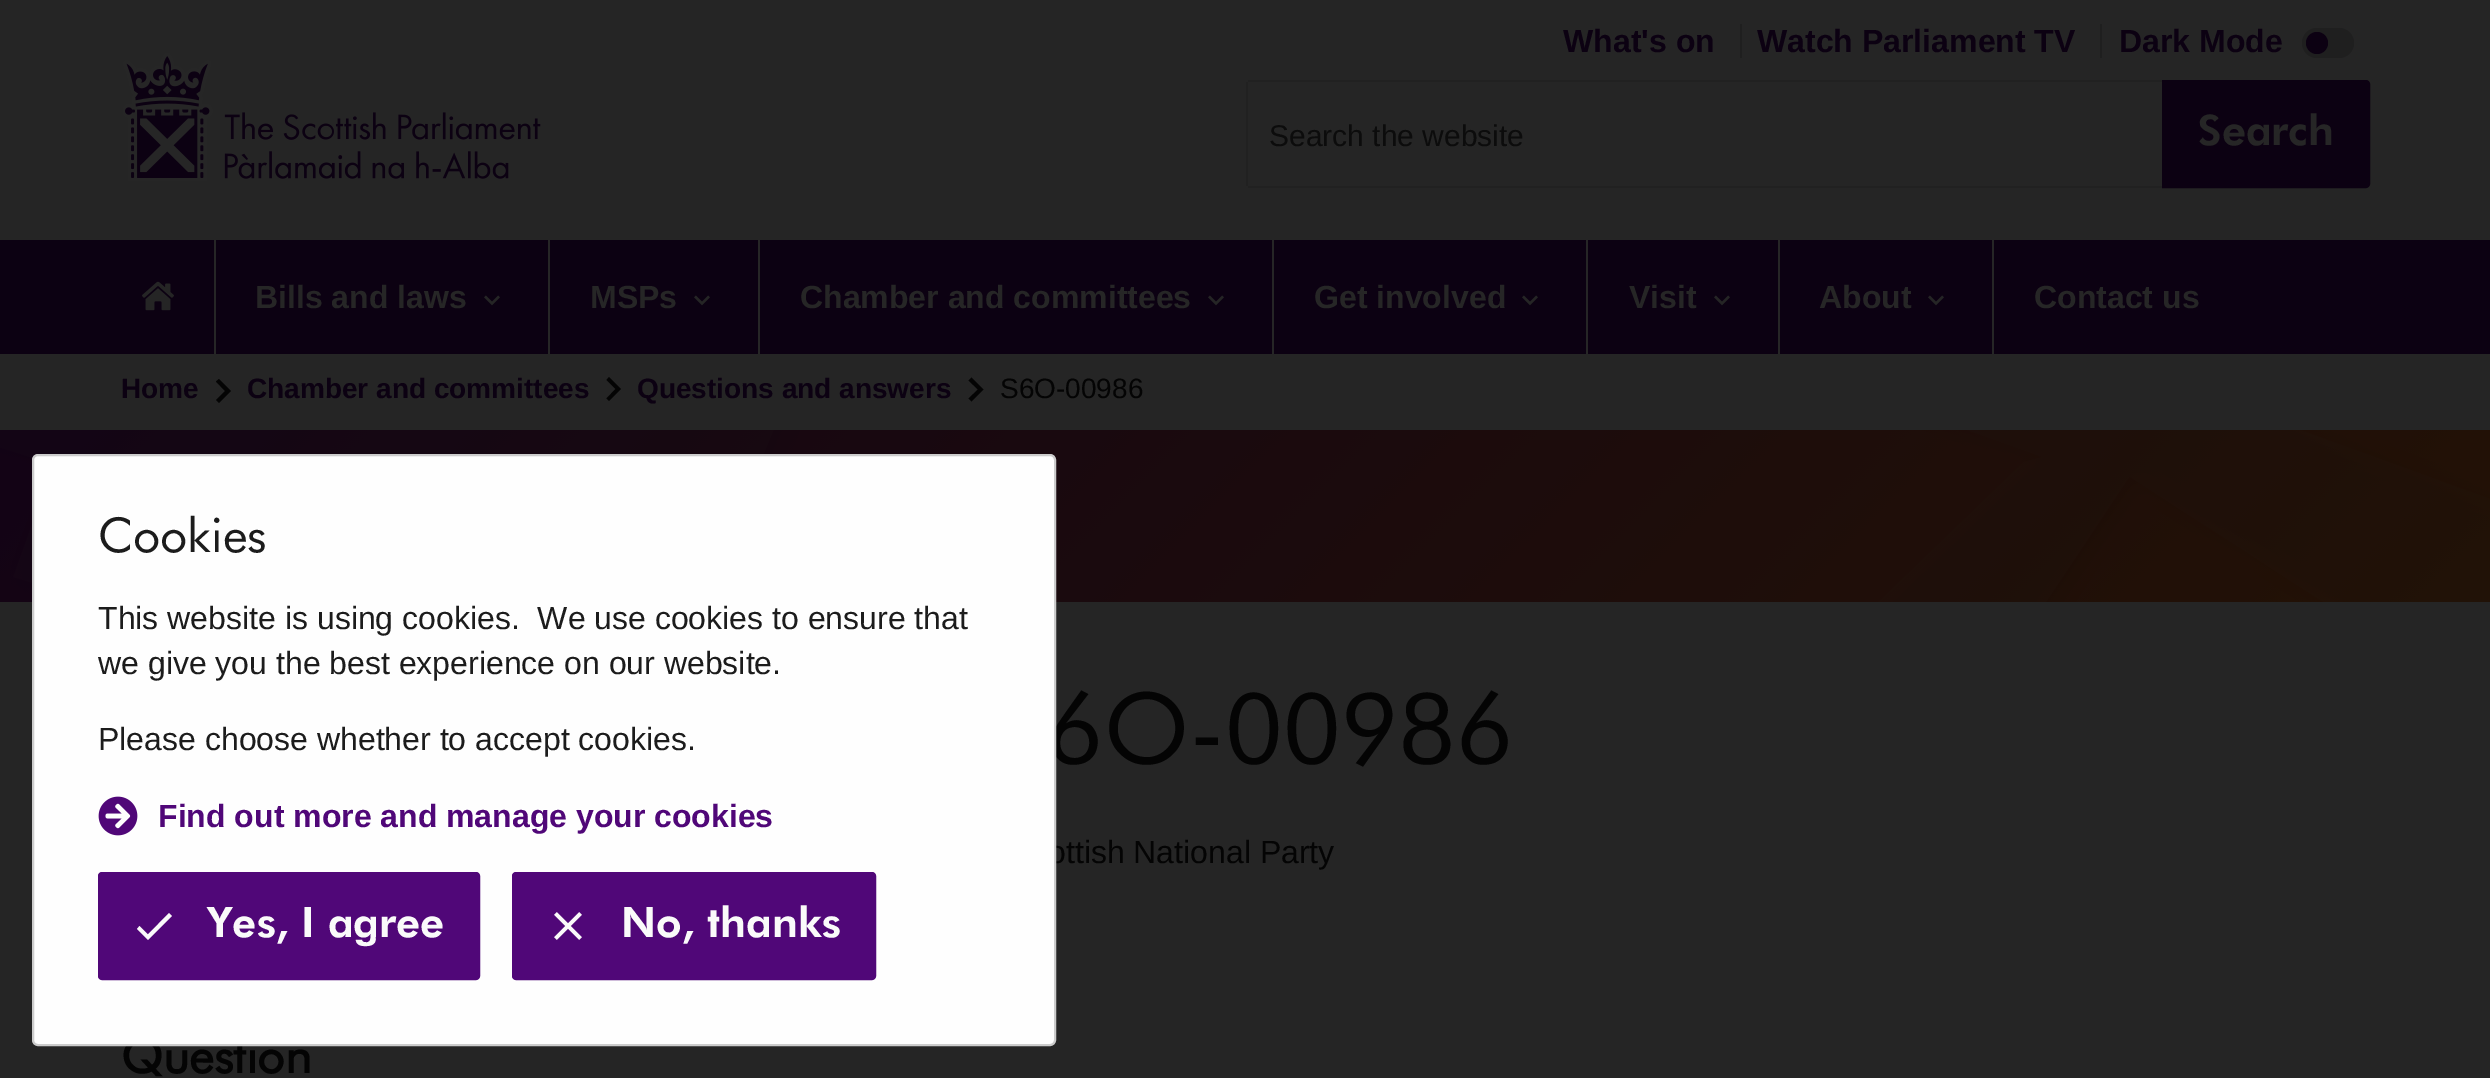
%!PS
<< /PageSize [2490 1078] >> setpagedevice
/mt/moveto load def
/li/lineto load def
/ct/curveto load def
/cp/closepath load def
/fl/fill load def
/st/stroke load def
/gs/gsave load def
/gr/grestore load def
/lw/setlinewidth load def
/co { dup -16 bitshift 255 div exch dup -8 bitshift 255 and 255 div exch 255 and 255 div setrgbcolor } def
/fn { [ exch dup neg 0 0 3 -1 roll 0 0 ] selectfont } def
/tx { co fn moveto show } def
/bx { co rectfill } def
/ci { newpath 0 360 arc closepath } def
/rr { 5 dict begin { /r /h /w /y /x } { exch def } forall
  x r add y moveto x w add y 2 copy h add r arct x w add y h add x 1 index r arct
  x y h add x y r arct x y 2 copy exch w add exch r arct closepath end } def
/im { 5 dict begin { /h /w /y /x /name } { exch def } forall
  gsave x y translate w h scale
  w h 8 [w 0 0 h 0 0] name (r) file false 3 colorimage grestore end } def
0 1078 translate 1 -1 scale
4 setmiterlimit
0 0 2490 1078 16#252525 bx
1740 24 2 34 16#1F1F1F bx
2100 24 2 34 16#1F1F1F bx
2302 28 52 30 15 rr fl
16#0C0112 co
2317 43 11 ci fl
(media/1.raw) 123 53 418 128 im
1248 80 914 2 16#212121 bx
1248 186 914 2 16#212121 bx
1246 82 2 104 16#212121 bx
16#0C0112 co
2163 81 mt 2366 81 li 2367.5 81 2369 82.5 2369 84 ct 2369 184 li 2369 185.5 2367.5 187 2366 187 ct 2163 187 li cp gs fl gr
2 lw
st
0 240 2490 114 16#0C0112 bx
214 240 2 114 16#262626 bx
(media/2.raw) 142 281 32 30 im
548 240 2 114 16#262626 bx
(media/3.raw) 484 295 16 11 im
758 240 2 114 16#262626 bx
(media/3.raw) 694 295 16 11 im
1272 240 2 114 16#262626 bx
(media/3.raw) 1208 295 16 11 im
1586 240 2 114 16#262626 bx
(media/3.raw) 1522 295 16 11 im
1778 240 2 114 16#262626 bx
(media/3.raw) 1714 295 16 11 im
1992 240 2 114 16#262626 bx
(media/3.raw) 1928 295 16 11 im
16#040404 co
216 400 mt 225 391 li 216 381.5 li 219 379 li 231 391 li 219 403 li cp fl
606.5 398.5 mt 615.5 389 li 606.5 380 li 609 377 li 621 389 li 609 401 li cp fl
968.5 398.5 mt 978 389.5 li 968.5 380.5 li 971.5 377.5 li 983.5 389.5 li 971.5 401.5 li cp fl
(media/4.raw) 0 430 2490 172 im
(What's on) 1563 52 /LiberationSans-Bold 32 16#0C0112 tx
(Watch Parliament TV) 1757 52 /LiberationSans-Bold 32 16#0C0112 tx
(Dark Mode) 2119 52 /LiberationSans-Bold 32 16#0C0112 tx
(Search the website) 1269 146 /LiberationSans-Regular 30 16#0C0C0C tx
(Search) 2198 145 /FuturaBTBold-Bold 42 16#262626 tx
(Bills and laws) 255 308 /LiberationSans-Bold 32 16#262626 tx
(MSPs) 590 308 /LiberationSans-Bold 32 16#262626 tx
(Chamber and committees) 800 308 /LiberationSans-Bold 32 16#262626 tx
(Get involved) 1314 308 /LiberationSans-Bold 32 16#262626 tx
(Visit) 1629 308 /LiberationSans-Bold 32 16#262626 tx
(About) 1819 308 /LiberationSans-Bold 32 16#262626 tx
(Contact us) 2034 308 /LiberationSans-Bold 32 16#262626 tx
(Home) 121 398 /LiberationSans-Bold 28 16#0C0112 tx
(Chamber and committees) 247 398 /LiberationSans-Bold 28 16#0C0112 tx
(Questions and answers) 637 398 /LiberationSans-Bold 28 16#0C0112 tx
(S6O-00986) 1000 398 /LiberationSans-Regular 28 16#040404 tx
(6O-00986) 1046 763 /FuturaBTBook-Regular 98 16#040404 tx
(ottish National Party) 1048 863 /LiberationSans-Regular 32 16#040404 tx
(Question) 121 1073 /FuturaBTBook-Bold 48 16#040404 tx
16#FEFEFE co
33 455 1022 590 5 rr gs fl gr
16#CCCCCC co
st
(Cookies) 98 552 /FuturaBTBook-Regular 48 16#1C1C1C tx
(This website is using cookies.  We use cookies to ensure that) 98 629 /LiberationSans-Regular 32 16#1C1C1C tx
(we give you the best experience on our website.) 98 674 /LiberationSans-Regular 32 16#1C1C1C tx
(Please choose whether to accept cookies.) 98 750 /LiberationSans-Regular 32 16#1C1C1C tx
(media/5.raw) 98 796 40 40 im
(Find out more and manage your cookies) 158 827 /LiberationSans-Bold 32 16#500778 tx
99 873 380 106 3 rr gs fl gr
st
16#FAFAFA co
148 934.5 mt 139.5 926 li 137 929 li 148 940 li 172 916 li 169 913 li cp fl
(Yes, I agree) 207 937 /FuturaBTBold-Bold 42 16#FAFAFA tx
16#500778 co
513 873 362 106 3 rr gs fl gr
st
(media/6.raw) 554 912 28 28 im
(No, thanks) 621 937 /FuturaBTBold-Bold 42 16#FAFAFA tx
showpage
